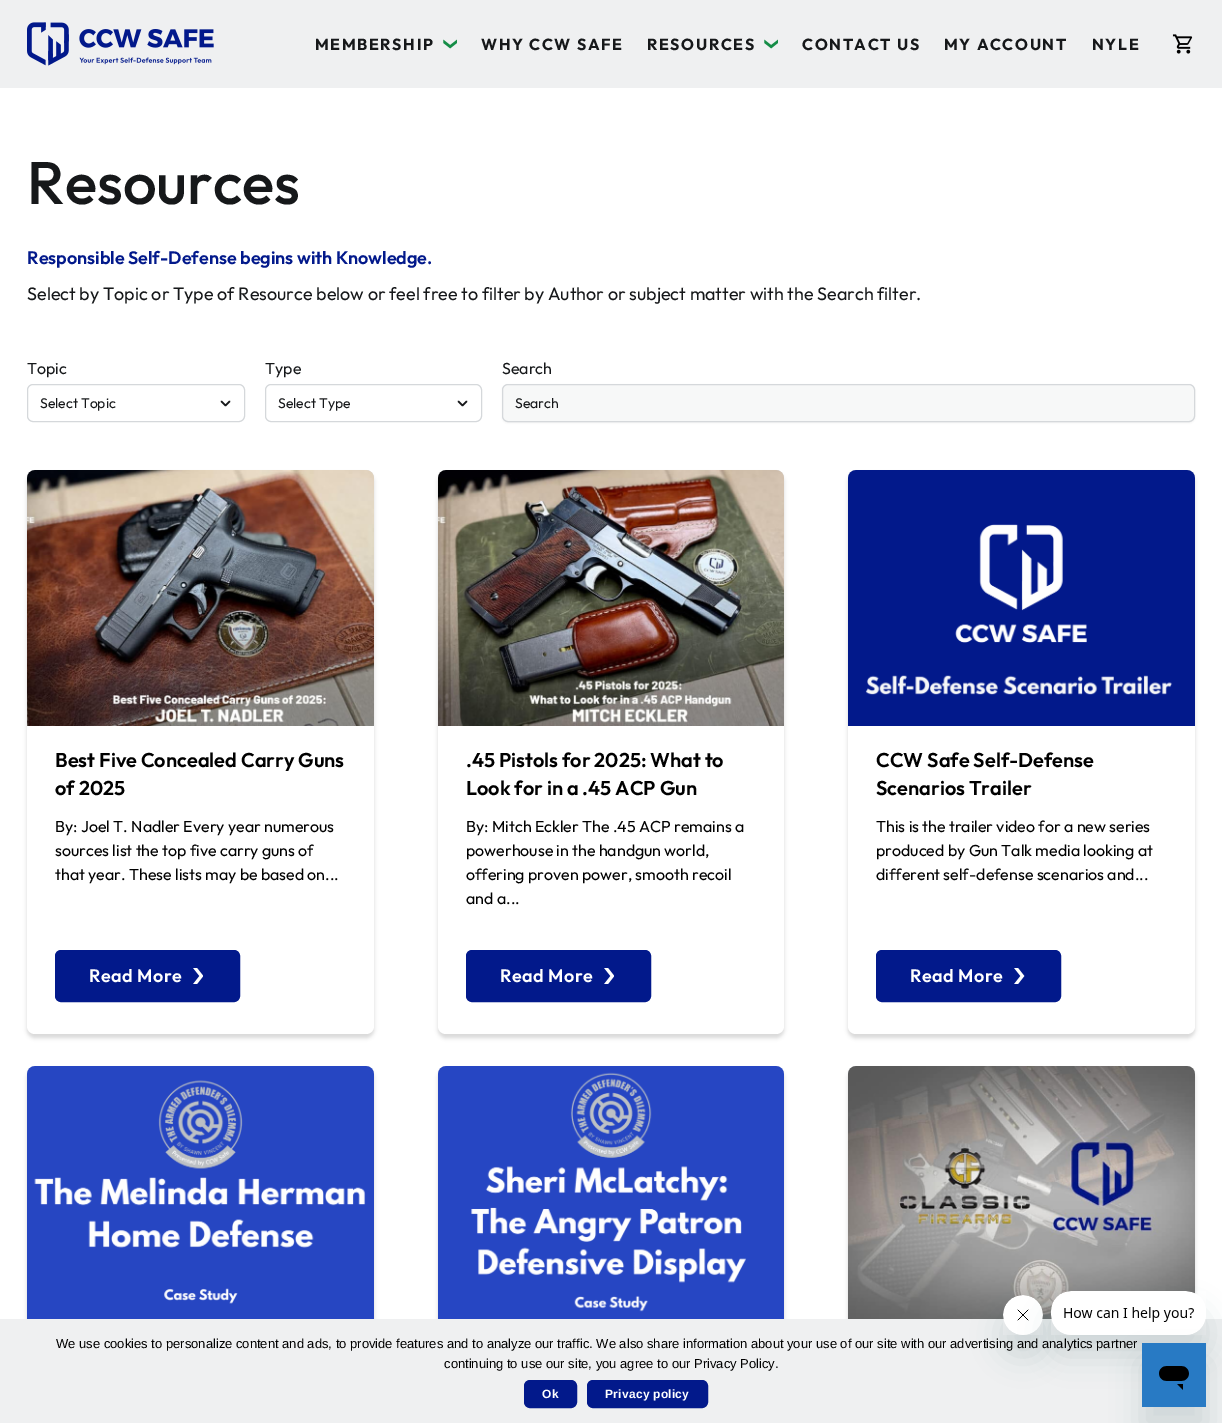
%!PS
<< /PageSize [1222 1423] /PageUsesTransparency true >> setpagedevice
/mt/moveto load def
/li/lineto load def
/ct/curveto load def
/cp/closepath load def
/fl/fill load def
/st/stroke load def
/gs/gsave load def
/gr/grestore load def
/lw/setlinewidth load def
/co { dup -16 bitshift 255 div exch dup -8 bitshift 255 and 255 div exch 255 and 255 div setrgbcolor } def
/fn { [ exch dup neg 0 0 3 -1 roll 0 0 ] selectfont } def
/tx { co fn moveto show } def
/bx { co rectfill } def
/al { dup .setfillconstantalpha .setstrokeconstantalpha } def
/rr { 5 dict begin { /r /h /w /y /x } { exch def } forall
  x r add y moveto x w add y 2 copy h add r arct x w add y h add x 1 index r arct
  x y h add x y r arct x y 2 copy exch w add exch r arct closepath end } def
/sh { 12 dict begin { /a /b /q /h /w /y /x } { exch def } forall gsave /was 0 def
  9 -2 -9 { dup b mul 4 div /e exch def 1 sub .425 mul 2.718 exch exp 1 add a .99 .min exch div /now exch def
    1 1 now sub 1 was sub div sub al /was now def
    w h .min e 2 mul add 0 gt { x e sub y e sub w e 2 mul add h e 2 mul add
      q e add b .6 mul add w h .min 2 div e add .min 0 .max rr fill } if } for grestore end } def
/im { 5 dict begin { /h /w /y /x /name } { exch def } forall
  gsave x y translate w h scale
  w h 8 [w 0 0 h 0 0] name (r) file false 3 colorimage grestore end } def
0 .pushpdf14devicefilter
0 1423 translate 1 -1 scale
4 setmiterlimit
0 0 1222 1423 16#FFFFFF bx
0 0 1222 88 16#EFF0F1 bx
(media/1.raw) 27 22 187 44 im
(media/2.raw) 443 39 14 10 im
(media/2.raw) 764 39 14 10 im
(media/3.raw) 1172 34 21 20 im
16#16181A co
1.6 lw
1 setlinecap
1 setlinejoin
221.5 401.5 mt 225.5 405.5 li 229.5 401.5 li st
16#D5D8DB co
1 lw
0 setlinecap
0 setlinejoin
27.5 384.5 217 37 5.5 rr st
16#16181A co
1.6 lw
1 setlinecap
1 setlinejoin
458.5 401.5 mt 462.5 405.5 li 466.5 401.5 li st
16#D5D8DB co
1 lw
0 setlinecap
0 setlinejoin
265.5 384.5 216 37 5.5 rr st
16#000000 co
502 385 693 38 6 1 .05 sh
16#F7F8F8 co
502.5 384.5 692 37 5.5 rr gs fl gr
16#D5D8DB co
st
16#000000 co
27 474 347 564 8 2 .15 sh
(media/4.raw) 27 470 347 256 im
16#FFFFFF co
27 726 mt 374 726 li 374 1026 li 374 1030.5 370.5 1034 366 1034 ct 35 1034 li 30.5 1034 27 1030.5 27 1026 ct cp fl
16#02198B co
56 951 183 50 5 rr gs fl gr
2 lw
st
(media/5.raw) 193 968 10 16 im
16#000000 co
438 474 346 564 8 2 .15 sh
(media/6.raw) 438 470 346 256 im
16#FFFFFF co
438 726 mt 784 726 li 784 1026 li 784 1030.5 780.5 1034 776 1034 ct 446 1034 li 441.5 1034 438 1030.5 438 1026 ct cp fl
16#02198B co
467 951 183 50 5 rr gs fl gr
st
(media/5.raw) 604 968 10 16 im
16#000000 co
848 474 347 564 8 2 .15 sh
(media/7.raw) 848 470 347 256 im
16#FFFFFF co
848 726 mt 1195 726 li 1195 1026 li 1195 1030.5 1191.5 1034 1187 1034 ct 856 1034 li 851.5 1034 848 1030.5 848 1026 ct cp fl
16#02198B co
877 951 183 50 5 rr gs fl gr
st
(media/8.raw) 1014 968 11 16 im
16#000000 co
27 1070 347 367 8 2 .15 sh
(media/9.raw) 27 1066 347 253 im
438 1070 346 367 8 2 .15 sh
(media/10.raw) 438 1066 346 253 im
848 1070 347 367 8 2 .15 sh
(media/11.raw) 848 1066 347 253 im
0 1319 1222 104 16#EFF0F1 bx
16#17494D co
1003 1315 40 40 20 15 .15 sh
(media/13.raw) 1003 1295 40 40 im
1051 1311 155 44 20 15 .15 sh
(media/12.raw) 1051 1291 155 44 im
1142 1363 64 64 0 15 .15 sh
(media/14.raw) 1142 1343 64 64 im
16#02198B co
525 1381 51 26 5 rr gs fl gr
st
588 1381 119 26 5 rr gs fl gr
st
/Outfit-Bold 16 fn
16#16181A co
315 50 mt 1.6 0 (MEMBERSHIP) ashow
481 50 mt 1.6 0 (WHY CCW SAFE) ashow
647 50 mt 1.6 0 (RESOURCES) ashow
802 50 mt 1.6 0 (CONTACT US) ashow
944 50 mt 1.6 0 (MY ACCOUNT) ashow
1092 50 mt 1.6 0 (NYLE) ashow
(Resources) 27 204 /Outfit-Medium 60 16#16181A tx
(Responsible Self-Defense begins with Knowledge.) 27 264 /Outfit-SemiBold 18 16#02198B tx
(Select by Topic or Type of Resource below or feel free to filter by Author or subject matter with the Search filter.) 27 300 /Outfit-Regular 18 16#16181A tx
(Topic) 27 374 /Outfit-Regular 16 16#16181A tx
(Select Topic) 40 408 /Outfit-Regular 14 16#16181A tx
(Type) 265 374 /Outfit-Regular 16 16#16181A tx
(Select Type) 278 408 /Outfit-Regular 14 16#16181A tx
(Search) 502 374 /Outfit-Regular 16 16#16181A tx
(Search) 515 408 /Outfit-Regular 14 16#16181A tx
(Best Five Concealed Carry Guns) 55 767 /Outfit-SemiBold 20 16#000000 tx
(of 2025) 55 795 /Outfit-SemiBold 20 16#000000 tx
(By: Joel T. Nadler Every year numerous) 55 832 /Outfit-Regular 16 16#000000 tx
(sources list the top five carry guns of) 55 856 /Outfit-Regular 16 16#000000 tx
(that year. These lists may be based on...) 55 880 /Outfit-Regular 16 16#000000 tx
/Outfit-SemiBold 18 fn
16#FFFFFF co
89 982 mt .5 0 (Read More) ashow
(.45 Pistols for 2025: What to) 466 767 /Outfit-SemiBold 20 16#000000 tx
(Look for in a .45 ACP Gun) 466 795 /Outfit-SemiBold 20 16#000000 tx
(By: Mitch Eckler The .45 ACP remains a) 466 832 /Outfit-Regular 16 16#000000 tx
(powerhouse in the handgun world,) 466 856 /Outfit-Regular 16 16#000000 tx
(offering proven power, smooth recoil) 466 880 /Outfit-Regular 16 16#000000 tx
(and a...) 466 904 /Outfit-Regular 16 16#000000 tx
/Outfit-SemiBold 18 fn
16#FFFFFF co
500 982 mt .5 0 (Read More) ashow
(CCW Safe Self-Defense) 876 767 /Outfit-SemiBold 20 16#000000 tx
(Scenarios Trailer) 876 795 /Outfit-SemiBold 20 16#000000 tx
(This is the trailer video for a new series) 876 832 /Outfit-Regular 16 16#000000 tx
(produced by Gun Talk media looking at) 876 856 /Outfit-Regular 16 16#000000 tx
(different self-defense scenarios and...) 876 880 /Outfit-Regular 16 16#000000 tx
/Outfit-SemiBold 18 fn
16#FFFFFF co
910 982 mt .5 0 (Read More) ashow
(We use cookies to personalize content and ads, to provide features and to analyze our traffic. We also share information about your use of our site with our advertising and analytics partner) 56 1348 /LiberationSans-Regular 13 16#000000 tx
(continuing to use our site, you agree to our Privacy Policy.) 444 1368 /LiberationSans-Regular 13 16#000000 tx
/LiberationSans-Bold 12 fn
16#FFFFFF co
542 1398 mt .25 0 (Ok) ashow
605 1398 mt .25 0 (Privacy policy) ashow
.poppdf14devicefilter showpage
